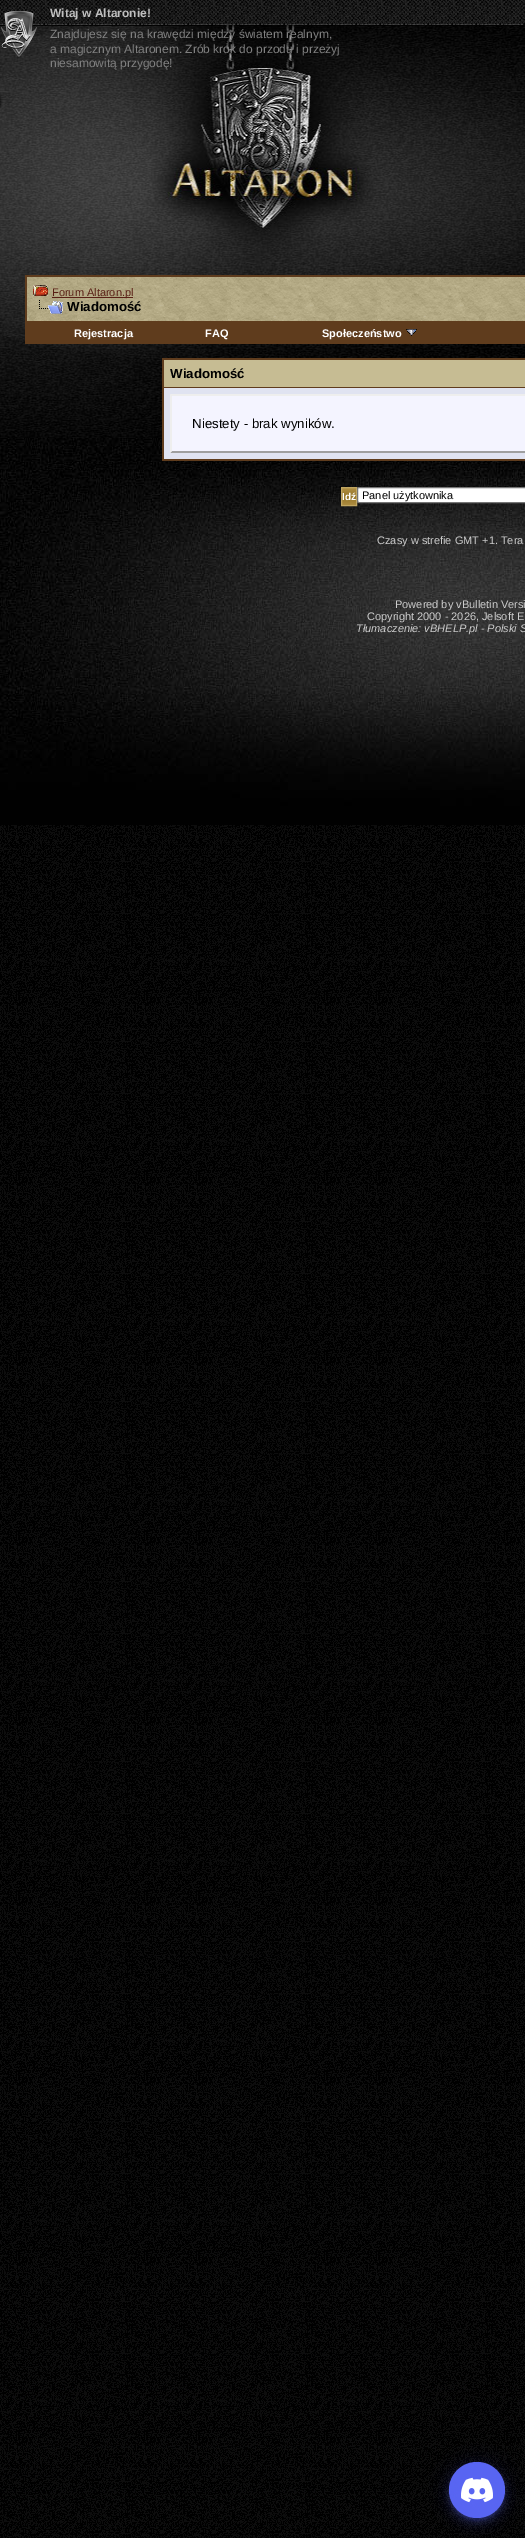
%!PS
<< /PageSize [525 2538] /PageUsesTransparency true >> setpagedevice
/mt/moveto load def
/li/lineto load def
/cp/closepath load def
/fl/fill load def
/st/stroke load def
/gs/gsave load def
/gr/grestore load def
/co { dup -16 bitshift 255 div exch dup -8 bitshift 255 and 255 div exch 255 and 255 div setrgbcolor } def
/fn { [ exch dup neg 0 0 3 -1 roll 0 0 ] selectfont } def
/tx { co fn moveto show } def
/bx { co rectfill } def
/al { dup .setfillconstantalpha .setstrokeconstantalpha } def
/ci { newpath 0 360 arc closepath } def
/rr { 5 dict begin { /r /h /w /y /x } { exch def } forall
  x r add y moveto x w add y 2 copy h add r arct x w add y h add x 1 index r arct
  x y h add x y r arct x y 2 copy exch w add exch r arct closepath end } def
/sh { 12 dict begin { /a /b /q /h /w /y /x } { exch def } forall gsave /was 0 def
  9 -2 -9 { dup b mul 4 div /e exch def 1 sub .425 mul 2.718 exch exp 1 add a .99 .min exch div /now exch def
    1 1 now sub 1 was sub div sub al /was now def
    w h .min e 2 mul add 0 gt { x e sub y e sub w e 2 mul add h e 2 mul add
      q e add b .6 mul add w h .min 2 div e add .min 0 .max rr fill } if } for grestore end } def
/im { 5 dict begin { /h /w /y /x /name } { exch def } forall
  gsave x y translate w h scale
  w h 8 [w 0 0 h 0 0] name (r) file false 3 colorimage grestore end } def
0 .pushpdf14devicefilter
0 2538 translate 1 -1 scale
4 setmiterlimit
0 0 525 2538 16#FFFFFF bx
(media/1.raw) 0 825 525 1713 im
(media/2.raw) 0 25 525 413 im
(media/3.raw) 0 0 525 25 im
(media/4.raw) 0 438 525 387 im
(media/5.raw) 1 11 36 46 im
25 275 500 48 16#5F3C1D bx
(media/6.raw) 27 277 498 44 im
(media/7.raw) 33 285 15 11 im
52 297 81 1 16#592015 bx
(media/8.raw) 39 300 24 14 im
26 323 499 20 16#5F3C1D bx
25 343 500 1 16#5F3C1D bx
25 323 1 21 16#5F3C1D bx
(media/9.raw) 406 329 11 7 im
162 358 363 103 16#5F3C1D bx
164 360 361 27 16#C6BC93 bx
164 388 361 71 16#E0E3F1 bx
170 396 355 57 16#F4F4FF bx
16#EEEEEE co
170 394 mt 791 394 li 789 396 li 172 396 li cp fl
16#9F9F9F co
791 453 mt 170 453 li 172 451 li 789 451 li cp fl
16#EEEEEE co
170 453 mt 170 394 li 172 396 li 172 451 li cp fl
342 488 14 1 16#AF9044 bx
(media/10.raw) 342 489 14 16 im
16#C1A661 co
341.5 487.5 15 18 rectstroke
16#FFFFFF co
357.5 487.5 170 15 1.5 rr gs fl gr
16#767676 co
st
16#5865F2 co
449 2463 56 56 28 9 .12 sh
449 2468 56 56 28 5 .14 sh
450 2466 54 54 27 2.5 .3 sh
477 2490 28 ci fl
(media/11.raw) 461 2477 32 26 im
(Witaj w Altaronie!) 50 17 /LiberationSans-Bold 12 16#BFBFBF tx
(Znajdujesz się na krawędzi między światem realnym,) 50 38 /LiberationSans-Regular 12 16#808080 tx
(a magicznym Altaronem. Zrób krok do przodu i przeżyj) 50 53 /LiberationSans-Regular 12 16#808080 tx
(niesamowitą przygodę!) 50 67 /LiberationSans-Regular 12 16#808080 tx
(Forum Altaron.pl) 52 296 /LiberationSans-Regular 11 16#592015 tx
(Wiadomość) 67 311 /LiberationSans-Bold 13.25 16#000000 tx
(Rejestracja) 74 337 /LiberationSans-Bold 11 16#FFFFFF tx
(FAQ) 205 337 /LiberationSans-Bold 11 16#FFFFFF tx
(Społeczeństwo) 322 337 /LiberationSans-Bold 11 16#FFFFFF tx
(Wiadomość) 170 378 /LiberationSans-Bold 13.25 16#000000 tx
(Niestety - brak wyników.) 192 428 /LiberationSans-Regular 13.25 16#000000 tx
(Idź) 342 500 /LiberationSans-Bold 10 16#FFFFFF tx
(Panel użytkownika) 362 499 /LiberationSans-Regular 11 16#000000 tx
(Czasy w strefie GMT +1. Tera) 377 544 /LiberationSans-Regular 11 16#CCCCCC tx
(Powered by vBulletin Versi) 395 608 /LiberationSans-Regular 11 16#CCCCCC tx
(Copyright 2000 - 2026, Jelsoft E) 367 620 /LiberationSans-Regular 11 16#CCCCCC tx
(Tłumaczenie: vBHELP.pl - Polski S) 356 632 /LiberationSans-Italic 11 16#CCCCCC tx
.poppdf14devicefilter showpage
